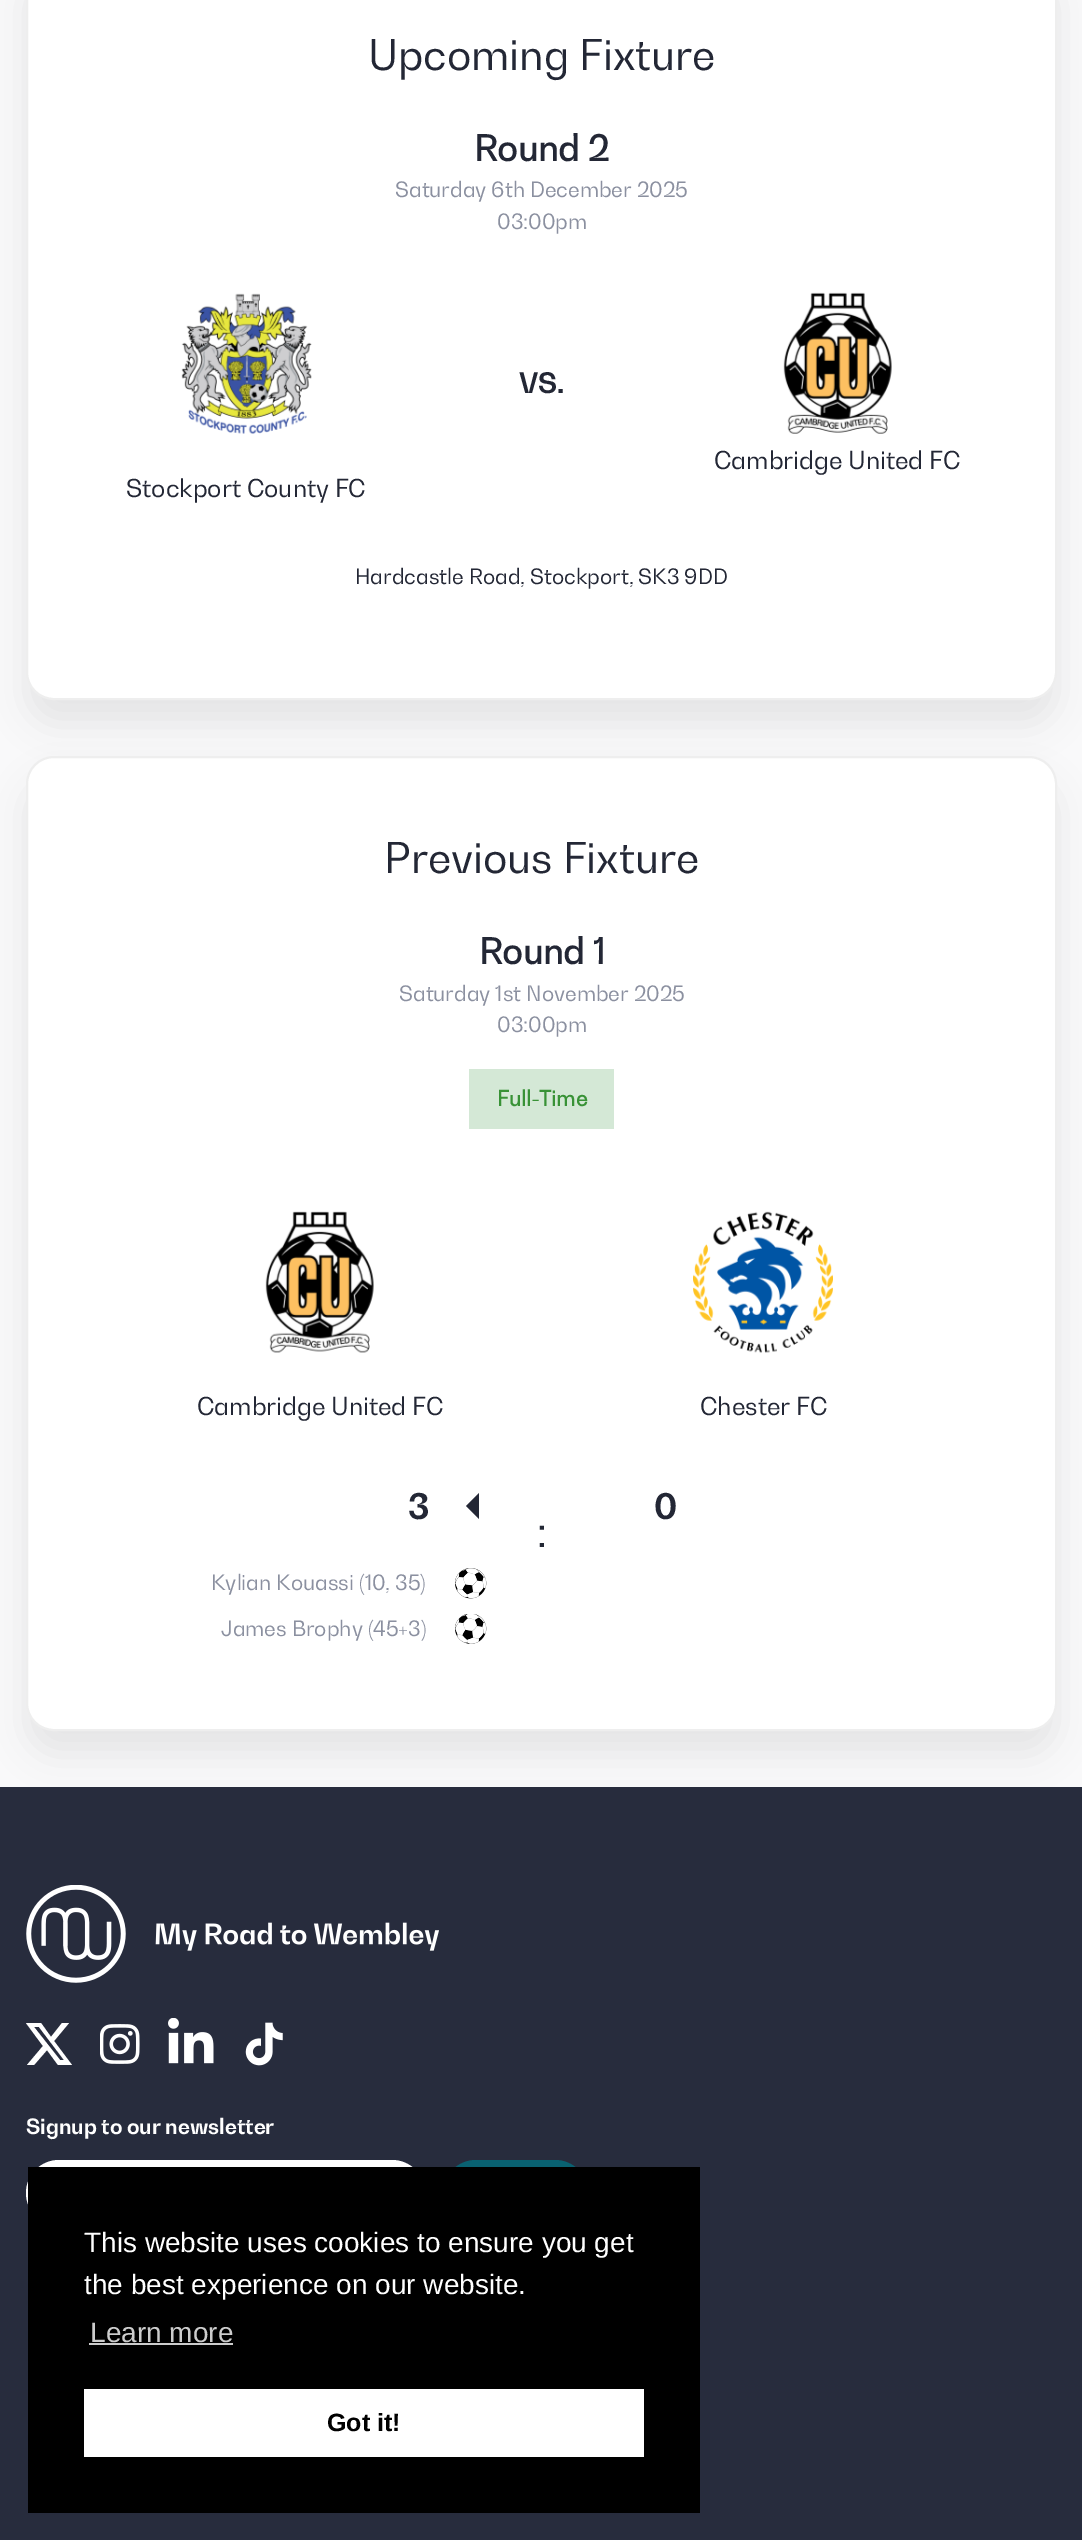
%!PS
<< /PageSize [1082 2540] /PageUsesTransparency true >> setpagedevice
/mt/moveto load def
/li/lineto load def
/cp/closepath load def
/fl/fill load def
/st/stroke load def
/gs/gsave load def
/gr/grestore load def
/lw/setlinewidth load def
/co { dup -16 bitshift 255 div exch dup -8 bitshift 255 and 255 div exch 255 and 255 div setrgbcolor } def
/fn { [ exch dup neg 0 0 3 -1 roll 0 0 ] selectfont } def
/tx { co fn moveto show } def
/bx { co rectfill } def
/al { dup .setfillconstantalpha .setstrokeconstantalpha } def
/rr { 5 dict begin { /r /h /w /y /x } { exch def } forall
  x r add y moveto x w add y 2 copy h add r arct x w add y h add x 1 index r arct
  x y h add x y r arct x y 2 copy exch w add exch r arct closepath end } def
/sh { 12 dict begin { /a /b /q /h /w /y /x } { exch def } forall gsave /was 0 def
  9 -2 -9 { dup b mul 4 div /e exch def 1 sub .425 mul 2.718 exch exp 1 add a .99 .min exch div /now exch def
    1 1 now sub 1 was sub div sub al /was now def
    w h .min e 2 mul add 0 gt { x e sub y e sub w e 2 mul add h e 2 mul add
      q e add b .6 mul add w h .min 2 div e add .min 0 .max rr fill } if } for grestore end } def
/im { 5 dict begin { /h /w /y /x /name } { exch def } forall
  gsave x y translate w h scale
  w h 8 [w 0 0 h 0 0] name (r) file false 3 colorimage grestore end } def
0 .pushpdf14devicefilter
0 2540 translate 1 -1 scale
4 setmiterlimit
0 0 1082 2540 16#F9F9FA bx
16#000000 co
26 -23 1031 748 28 17.5 .07 sh
16#FFFFFF co
27 -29 1029 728 27 rr gs fl gr
16#EEEEEE co
2 lw
st
(media/1.raw) 783 292 109 142 im
(media/2.raw) 181 293 131 141 im
0 1787 1082 753 16#272C3D bx
16#000000 co
26 781 1031 974 28 17.5 .07 sh
16#FFFFFF co
27 757 1029 973 27 rr gs fl gr
16#EEEEEE co
st
469 1069 145 60 16#D4E8D6 bx
(media/3.raw) 265 1211 109 142 im
(media/4.raw) 693 1211 140 142 im
16#232735 co
479 1493 mt 479 1519 li 466 1506 li cp fl
(media/5.raw) 455 1568 32 31 im
(media/6.raw) 455 1614 32 30 im
(media/7.raw) 26 1885 413 98 im
16#FFFFFF co
62 2023 mt 69 2023 li 54 2041 li 72 2065 li 58 2065 li 47 2050 li 34 2065 li 27 2065 li 43 2046 li 26 2023 li 41 2023 li 51 2037 li cp 60 2060 mt 64 2060 li 39 2027 li 34 2027 li cp fl
(media/8.raw) 100 2024 40 40 im
(media/9.raw) 168 2018 46 46 im
(media/10.raw) 245 2022 38 44 im
26 2160 399 66 33 rr fl
16#096171 co
443 2160 145 66 33 rr fl
28 2167 672 346 16#000000 bx
89 2343 144 2 16#CCCCCC bx
84 2389 560 68 16#FFFFFF bx
(Upcoming Fixture) 368 70 /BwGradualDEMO-Regular 42 16#232735 tx
(Round 2) 474 161 /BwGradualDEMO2-Bold 35 16#232735 tx
(Saturday 6th December 2025) 395 197 /BwGradualDEMO-Regular 21 16#8B90A0 tx
(03:00pm) 497 229 /BwGradualDEMO-Regular 21 16#8B90A0 tx
(VS.) 519 393 /BwGradualDEMO-Bold 28 16#232735 tx
(Cambridge United FC) 714 469 /BwGradualDEMO-Regular 24.5 16#232735 tx
(Stockport County FC) 126 497 /BwGradualDEMO-Regular 24.5 16#232735 tx
(Hardcastle Road, Stockport, SK3 9DD) 355 584 /BwGradualDEMO-Regular 21 16#232735 tx
(Previous Fixture) 384 873 /BwGradualDEMO-Regular 42 16#232735 tx
(Round 1) 479 964 /BwGradualDEMO2-Bold 35 16#232735 tx
(Saturday 1st November 2025) 399 1001 /BwGradualDEMO-Regular 21 16#8B90A0 tx
(03:00pm) 497 1032 /BwGradualDEMO-Regular 21 16#8B90A0 tx
(Full-Time) 497 1106 /BwGradualDEMO2-Bold 21 16#389236 tx
(Cambridge United FC) 197 1415 /BwGradualDEMO-Regular 24.5 16#232735 tx
(Chester FC) 700 1415 /BwGradualDEMO-Regular 24.5 16#232735 tx
(3) 408 1519 /BwGradualDEMO-Bold 35 16#232735 tx
(Kylian Kouassi \(10, 35\)) 211 1590 /BwGradualDEMO-Regular 21 16#8B90A0 tx
(James Brophy \(45+3\)) 221 1636 /BwGradualDEMO-Regular 21 16#8B90A0 tx
(0) 654 1519 /BwGradualDEMO-Bold 35 16#232735 tx
(:) 537 1547 /BwGradualDEMO-Regular 42 16#232735 tx
(Signup to our newsletter) 26 2134 /BwGradualDEMO-Bold 21 16#FFFFFF tx
(This website uses cookies to ensure you get) 84 2252 /LiberationSans-Regular 28 16#FFFFFF tx
(the best experience on our website.) 84 2294 /LiberationSans-Regular 28 16#FFFFFF tx
(Learn more) 90 2342 /LiberationSans-Regular 28 16#CCCCCC tx
(Got it!) 327 2431 /LiberationSans-Bold 25 16#000000 tx
.poppdf14devicefilter showpage
